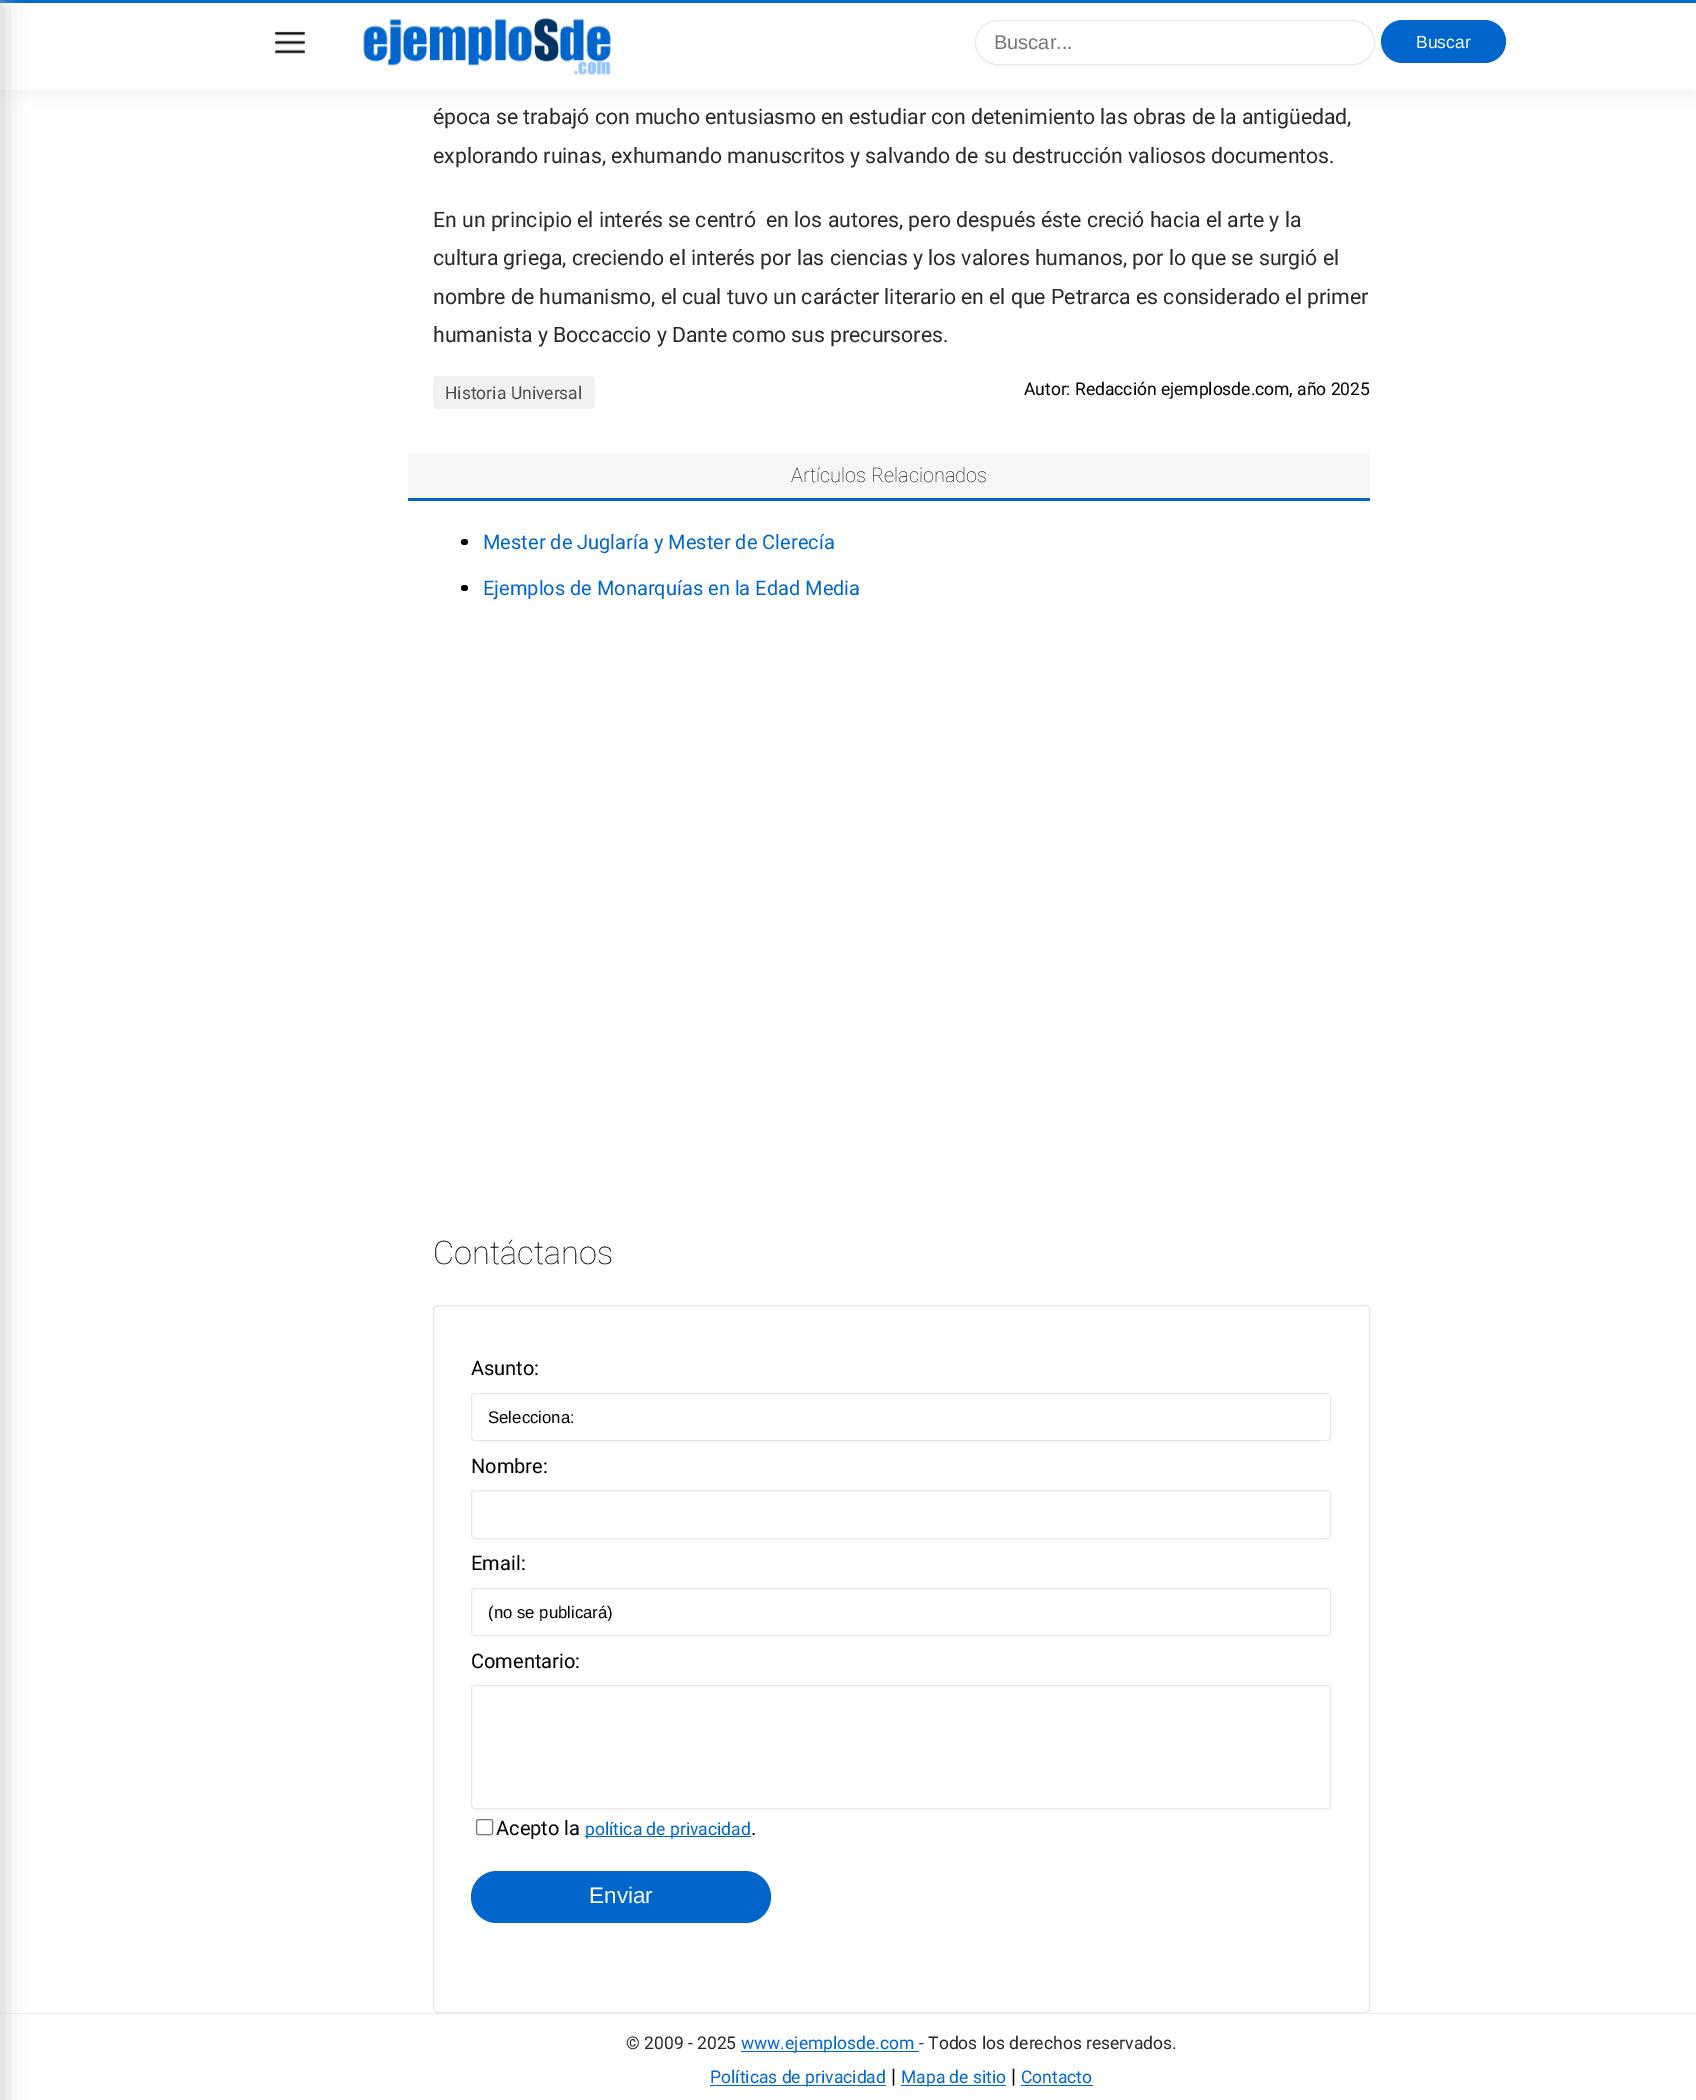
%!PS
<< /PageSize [1696 2100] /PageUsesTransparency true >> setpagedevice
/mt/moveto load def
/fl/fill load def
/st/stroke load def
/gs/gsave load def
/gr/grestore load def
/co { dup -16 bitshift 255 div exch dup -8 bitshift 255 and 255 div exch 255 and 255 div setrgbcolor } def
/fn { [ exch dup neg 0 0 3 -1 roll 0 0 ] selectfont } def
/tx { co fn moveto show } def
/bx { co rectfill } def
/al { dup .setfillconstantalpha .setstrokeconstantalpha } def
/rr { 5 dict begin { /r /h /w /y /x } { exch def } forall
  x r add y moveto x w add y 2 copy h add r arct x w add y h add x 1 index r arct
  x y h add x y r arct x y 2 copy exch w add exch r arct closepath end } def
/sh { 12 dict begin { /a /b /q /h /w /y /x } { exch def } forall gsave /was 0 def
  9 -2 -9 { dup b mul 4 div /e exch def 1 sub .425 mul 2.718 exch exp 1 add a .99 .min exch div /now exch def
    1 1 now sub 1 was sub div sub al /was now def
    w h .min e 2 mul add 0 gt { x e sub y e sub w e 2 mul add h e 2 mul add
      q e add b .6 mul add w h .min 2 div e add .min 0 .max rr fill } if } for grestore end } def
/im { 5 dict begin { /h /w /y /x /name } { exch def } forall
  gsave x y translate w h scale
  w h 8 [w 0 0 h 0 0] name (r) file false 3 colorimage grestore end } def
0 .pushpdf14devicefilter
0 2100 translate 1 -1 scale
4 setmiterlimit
0 0 1696 2100 16#FFFFFF bx
16#000000 co
0 5 1696 90 0 7.5 .05 sh
0 3 1696 87 16#FFFFFF bx
0 0 1696 3 16#0066CC bx
0 2013 1696 1 16#EEEEEE bx
16#CACACA co
-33 6 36 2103 0 11 1 sh
(media/1.raw) 275 31 30 23 im
(media/2.raw) 363 18 248 58 im
16#000000 co
975 21 400 45 22.5 2.5 .04 sh
16#FFFFFF co
975.5 20.5 399 44 22 rr gs fl gr
16#E8E8E8 co
st
16#0066CC co
1381 20 125 43 21.5 rr fl
16#F2F2F2 co
433 376 162 33 4 rr fl
408 453 962 45 16#F7F7F7 bx
408 498 962 3 16#0066CC bx
16#000000 co
461 539 7 6 3 rr fl
461 585 7 6 3 rr fl
16#E6E6E6 co
433.5 1305.5 936 707 4.5 rr st
16#E8E8E8 co
471.5 1393.5 859 47 3.5 rr st
16#000000 co
471 1491 860 49 4 2.5 .04 sh
16#FFFFFF co
471.5 1490.5 859 48 3.5 rr gs fl gr
16#E8E8E8 co
st
471.5 1588.5 859 47 3.5 rr st
16#000000 co
471 1686 860 124 4 2.5 .04 sh
16#FFFFFF co
471.5 1685.5 859 123 3.5 rr gs fl gr
16#E8E8E8 co
st
16#767676 co
476.5 1819.5 16 15 2 rr st
585 1836 166 1 16#0066CC bx
471 1871 300 52 26 rr fl
741 2051 178 1 16#0066CC bx
710 2085 176 1 16#0066CC bx
901 2085 105 1 16#0066CC bx
1021 2085 72 1 16#0066CC bx
(Buscar...) 994 49 /LiberationSans-Regular 20 16#757575 tx
(Buscar) 1416 48 /LiberationSans-Regular 17.5 16#FFFFFF tx
/Roboto-Regular 21.25 fn
16#292929 co
433 124 mt -.04 0 (época se trabajó con mucho entusiasmo en estudiar con detenimiento las obras de la antigüedad,) ashow
433 163 mt -.04 0 (explorando ruinas, exhumando manuscritos y salvando de su destrucción valiosos documentos.) ashow
433 227 mt -.04 0 (En un principio el interés se centró  en los autores, pero después éste creció hacia el arte y la) ashow
433 265 mt -.04 0 (cultura griega, creciendo el interés por las ciencias y los valores humanos, por lo que se surgió el) ashow
433 304 mt -.04 0 (nombre de humanismo, el cual tuvo un carácter literario en el que Petrarca es considerado el primer) ashow
433 342 mt -.04 0 (humanista y Boccaccio y Dante como sus precursores.) ashow
(Historia Universal) 445 399 /Roboto-Regular 17.5 16#4D4D4D tx
16#000000 co
1024 395 mt -.04 0 (Autor: Redacción ejemplosde.com, año 2025) ashow
(Artículos Relacionados) 791 482 /Roboto-Thin 20 16#000000 tx
(Mester de Juglaría y Mester de Clerecía) 483 549 /Roboto-Regular 20 16#0066CC tx
(Ejemplos de Monarquías en la Edad Media) 483 595 /Roboto-Regular 20 16#0066CC tx
(Contáctanos) 433 1264 /Roboto-Thin 32.5 16#000000 tx
(Asunto:) 471 1375 /Roboto-Regular 20 16#000000 tx
(Selecciona:) 488 1423 /LiberationSans-Regular 16.75 16#000000 tx
(Nombre:) 471 1473 /Roboto-Regular 20 16#000000 tx
(Email:) 471 1570 /Roboto-Regular 20 16#000000 tx
gs
488 1603 827 18 rectclip
(\(no se publicará\)) 488 1618 /LiberationSans-Regular 16.75 16#000000 tx
gr
(Comentario:) 471 1668 /Roboto-Regular 20 16#000000 tx
(Acepto la) 496 1835 /Roboto-Regular 20 16#000000 tx
(política de privacidad) 585 1835 /Roboto-Regular 17.5 16#0066CC tx
(.) 751 1835 /Roboto-Regular 20 16#000000 tx
(Enviar) 589 1903 /LiberationSans-Regular 22.5 16#FFFFFF tx
(© 2009 - 2025) 626 2049 /Roboto-Regular 17.5 16#292929 tx
(www.ejemplosde.com) 741 2049 /Roboto-Regular 17.5 16#0066CC tx
(- Todos los derechos reservados.) 919 2049 /Roboto-Regular 17.5 16#292929 tx
(Políticas de privacidad) 710 2083 /Roboto-Regular 17.5 16#0066CC tx
(|) 891 2083 /Roboto-Regular 20 16#000000 tx
(Mapa de sitio) 901 2083 /Roboto-Regular 17.5 16#0066CC tx
(|) 1011 2083 /Roboto-Regular 20 16#000000 tx
(Contacto) 1021 2083 /Roboto-Regular 17.5 16#0066CC tx
.poppdf14devicefilter showpage
